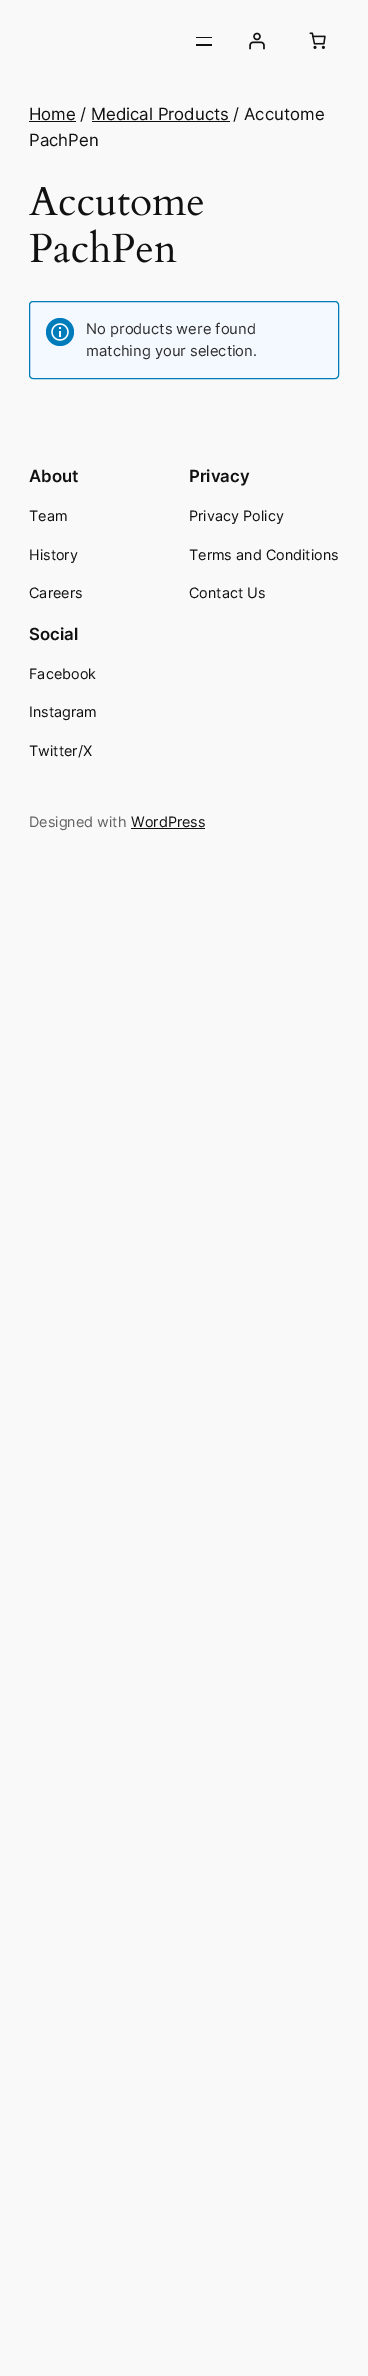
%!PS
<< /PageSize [368 2376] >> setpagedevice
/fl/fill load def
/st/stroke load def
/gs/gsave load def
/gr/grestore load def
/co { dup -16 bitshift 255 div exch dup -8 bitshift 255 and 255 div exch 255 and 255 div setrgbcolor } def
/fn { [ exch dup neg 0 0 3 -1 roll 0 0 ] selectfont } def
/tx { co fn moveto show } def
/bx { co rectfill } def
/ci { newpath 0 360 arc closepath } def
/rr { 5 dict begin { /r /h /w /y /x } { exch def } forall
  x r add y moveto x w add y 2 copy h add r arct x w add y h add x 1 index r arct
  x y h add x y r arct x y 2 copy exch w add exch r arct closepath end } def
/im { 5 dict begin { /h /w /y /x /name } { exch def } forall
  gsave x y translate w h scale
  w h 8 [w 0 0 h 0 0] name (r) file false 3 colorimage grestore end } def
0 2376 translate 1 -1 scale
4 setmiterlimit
0 0 368 2376 16#F9F9F9 bx
196 37 16 1 16#111111 bx
196 44 16 2 16#111111 bx
(media/1.raw) 249 32 16 18 im
(media/2.raw) 309 32 17 17 im
29 121 47 1 16#111111 bx
92 121 138 1 16#111111 bx
(media/3.raw) 29 187 174 29 im
(media/4.raw) 29 229 148 34 im
16#F4F8FF co
29.5 301.5 309 77 3.5 rr gs fl gr
16#007CBA co
st
60 332 14 ci fl
(media/5.raw) 51 323 18 18 im
131 828 74 1 16#111111 bx
(Home / Medical Products / Accutome) 29 120 /Inter-Regular 16.75 16#111111 tx
(PachPen) 29 146 /Inter-Regular 16.75 16#111111 tx
(No products were found) 86 334 /Inter-Regular 14.75 16#2F2F2F tx
(matching your selection.) 86 356 /Inter-Regular 14.75 16#2F2F2F tx
(About) 29 482 /Inter-SemiBold 16.75 16#111111 tx
(Team) 29 521 /Inter-Regular 14.4 16#111111 tx
(History) 29 560 /Inter-Regular 14.4 16#111111 tx
(Careers) 29 598 /Inter-Regular 14.4 16#111111 tx
(Privacy) 189 482 /Inter-SemiBold 16.75 16#111111 tx
(Privacy Policy) 189 521 /Inter-Regular 14.4 16#111111 tx
(Terms and Conditions) 189 560 /Inter-Regular 14.4 16#111111 tx
(Contact Us) 189 598 /Inter-Regular 14.4 16#111111 tx
(Social) 29 640 /Inter-SemiBold 16.75 16#111111 tx
(Facebook) 29 679 /Inter-Regular 14.4 16#111111 tx
(Instagram) 29 717 /Inter-Regular 14.4 16#111111 tx
(Twitter/X) 29 756 /Inter-Regular 14.4 16#111111 tx
(Designed with) 29 827 /Inter-Regular 14.4 16#636363 tx
(WordPress) 131 827 /Inter-Regular 14.4 16#111111 tx
showpage
